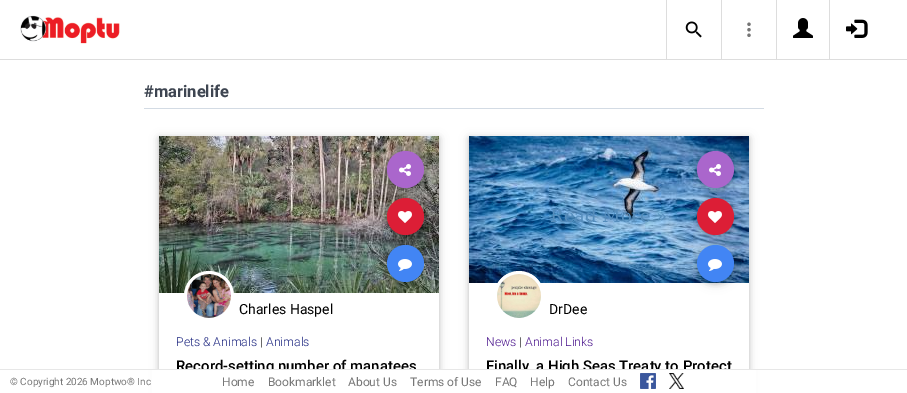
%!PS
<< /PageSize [907 393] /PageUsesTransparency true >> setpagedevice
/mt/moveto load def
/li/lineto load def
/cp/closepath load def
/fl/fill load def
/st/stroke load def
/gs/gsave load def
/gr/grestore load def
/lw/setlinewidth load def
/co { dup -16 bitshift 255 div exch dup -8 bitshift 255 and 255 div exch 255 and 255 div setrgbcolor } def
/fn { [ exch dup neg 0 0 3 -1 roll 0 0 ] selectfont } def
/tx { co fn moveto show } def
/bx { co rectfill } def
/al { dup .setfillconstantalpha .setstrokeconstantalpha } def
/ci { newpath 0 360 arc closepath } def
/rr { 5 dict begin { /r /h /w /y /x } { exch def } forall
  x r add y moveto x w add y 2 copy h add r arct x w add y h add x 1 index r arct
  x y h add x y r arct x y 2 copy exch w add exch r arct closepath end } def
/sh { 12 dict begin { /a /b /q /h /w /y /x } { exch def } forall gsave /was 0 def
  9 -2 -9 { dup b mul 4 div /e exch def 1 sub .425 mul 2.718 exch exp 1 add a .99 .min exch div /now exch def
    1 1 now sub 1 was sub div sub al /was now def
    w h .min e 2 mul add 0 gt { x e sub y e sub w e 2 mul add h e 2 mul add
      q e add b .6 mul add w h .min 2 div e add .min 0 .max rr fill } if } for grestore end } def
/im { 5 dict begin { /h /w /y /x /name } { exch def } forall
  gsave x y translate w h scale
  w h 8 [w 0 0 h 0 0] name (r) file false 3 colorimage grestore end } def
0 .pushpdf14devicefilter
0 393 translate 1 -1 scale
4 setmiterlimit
0 0 907 393 16#FFFFFF bx
0 59 907 1 16#DDDDDD bx
(media/1.raw) 20 15 100 29 im
666 0 1 59 16#DDDDDD bx
(media/2.raw) 685 21 17 17 im
721 0 1 59 16#DDDDDD bx
(media/3.raw) 747 22 4 15 im
776 0 1 59 16#DDDDDD bx
(media/4.raw) 793 18 20 20 im
829 0 1 59 16#DDDDDD bx
(media/5.raw) 846 19 22 19 im
144 108 620 1 16#D3DBE4 bx
gs
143 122 mt 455 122 li 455 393 li 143 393 li cp 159 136 mt 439 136 li 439 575 li 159 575 li cp eoclip newpath
16#000000 co
159 138 280 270 0 5 .12 sh
gr
gs
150 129 mt 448 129 li 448 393 li 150 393 li cp 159 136 mt 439 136 li 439 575 li 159 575 li cp eoclip newpath
16#000000 co
159 138 280 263 0 2.5 .16 sh
gr
(media/6.raw) 159 136 280 157 im
16#FFFFFF co
209 296 23.5 ci gs fl gr
3 lw
st
(media/7.raw) 187 274 44 44 im
16#000000 co
387 153 37 37 18.5 5 .12 sh
387 153 37 37 18.5 2.5 .16 sh
16#AA66CC co
405.5 169.5 18.5 ci fl
(media/8.raw) 399 164 12 12 im
16#000000 co
387 200 37 37 18.5 5 .12 sh
387 200 37 37 18.5 2.5 .16 sh
16#DC1E36 co
405.5 216.5 18.5 ci fl
(media/9.raw) 398 211 14 12 im
16#000000 co
387 247 37 37 18.5 5 .12 sh
387 247 37 37 18.5 2.5 .16 sh
16#4285F4 co
405.5 263.5 18.5 ci fl
(media/10.raw) 398 259 14 12 im
gs
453 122 mt 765 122 li 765 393 li 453 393 li cp 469 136 mt 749 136 li 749 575 li 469 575 li cp eoclip newpath
16#000000 co
469 138 280 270 0 5 .12 sh
gr
gs
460 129 mt 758 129 li 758 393 li 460 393 li cp 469 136 mt 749 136 li 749 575 li 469 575 li cp eoclip newpath
16#000000 co
469 138 280 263 0 2.5 .16 sh
gr
(media/11.raw) 469 136 280 147 im
16#000000 co
697 153 37 37 18.5 5 .12 sh
697 153 37 37 18.5 2.5 .16 sh
16#AA66CC co
715.5 169.5 18.5 ci fl
(media/8.raw) 709 164 12 12 im
16#000000 co
697 200 37 37 18.5 5 .12 sh
697 200 37 37 18.5 2.5 .16 sh
16#DC1E36 co
715.5 216.5 18.5 ci fl
(media/9.raw) 708 211 14 12 im
16#000000 co
697 247 37 37 18.5 5 .12 sh
697 247 37 37 18.5 2.5 .16 sh
16#4285F4 co
715.5 263.5 18.5 ci fl
(media/10.raw) 708 259 14 12 im
16#FFFFFF co
519 296 23.5 ci gs fl gr
st
(media/12.raw) 497 274 44 44 im
(#marinelife) 144 97 /Roboto-Bold 16.5 16#3E4551 tx
(Charles Haspel) 239 314 /Roboto-Regular 14 16#000000 tx
(Pets & Animals) 176 346 /Roboto-Light 12.25 16#1A237E tx
(|) 260 346 /Roboto-Light 12.25 16#333333 tx
(Animals) 266 346 /Roboto-Light 12.25 16#1A237E tx
(Record-setting number of manatees) 176 371 /Roboto-Medium 14.9 16#000000 tx
(Read More ») 550 222 /DejaVuSerif-Regular 18 16#558DBC tx
(DrDee) 549 314 /Roboto-Regular 14 16#000000 tx
(News) 486 346 /Roboto-Light 12.25 16#4A148C tx
(|) 519 346 /Roboto-Light 12.25 16#333333 tx
(Animal Links) 525 346 /Roboto-Light 12.25 16#4A148C tx
(Finally, a High Seas Treaty to Protect) 486 371 /Roboto-Medium 14.9 16#000000 tx
152 370 604 23 16#FFFFFF bx
0 369 907 1 16#E7E7E7 bx
(© Copyright 2026 Moptwo® Inc) 10 385 /Roboto-Regular 10 16#777777 tx
(Home) 222 386 /Roboto-Regular 12 16#777777 tx
(Bookmarklet) 268 386 /Roboto-Regular 12 16#777777 tx
(About Us) 348 386 /Roboto-Regular 12 16#777777 tx
(Terms of Use) 410 386 /Roboto-Regular 12 16#777777 tx
(FAQ) 495 386 /Roboto-Regular 12 16#777777 tx
(Help) 530 386 /Roboto-Regular 12 16#777777 tx
(Contact Us) 568 386 /Roboto-Regular 12 16#777777 tx
(media/13.raw) 640 373 16 16 im
(media/14.raw) 669 373 15 16 im
.poppdf14devicefilter showpage
